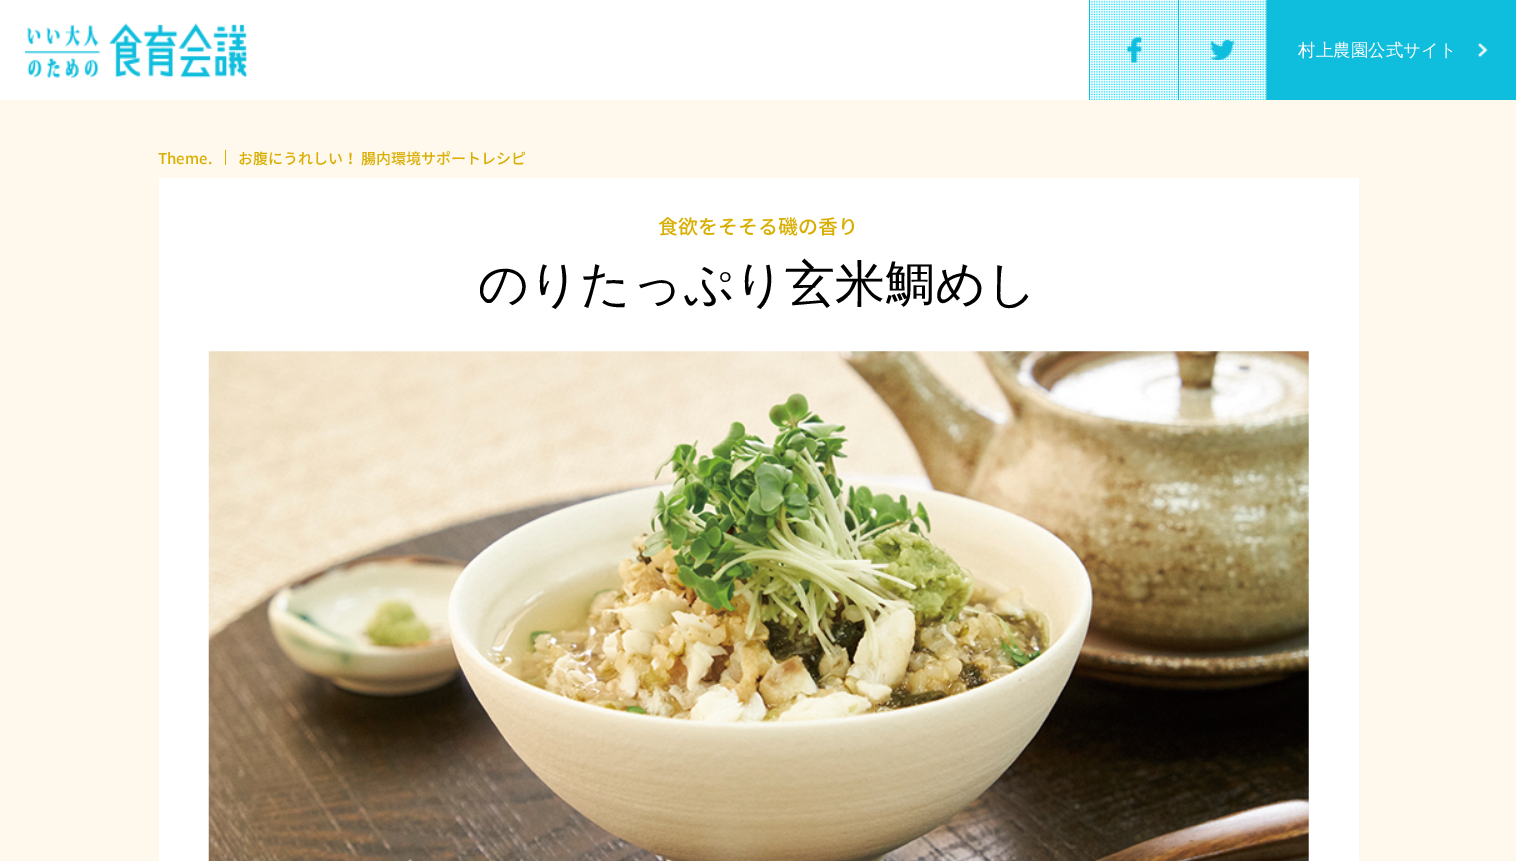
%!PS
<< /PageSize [1516 861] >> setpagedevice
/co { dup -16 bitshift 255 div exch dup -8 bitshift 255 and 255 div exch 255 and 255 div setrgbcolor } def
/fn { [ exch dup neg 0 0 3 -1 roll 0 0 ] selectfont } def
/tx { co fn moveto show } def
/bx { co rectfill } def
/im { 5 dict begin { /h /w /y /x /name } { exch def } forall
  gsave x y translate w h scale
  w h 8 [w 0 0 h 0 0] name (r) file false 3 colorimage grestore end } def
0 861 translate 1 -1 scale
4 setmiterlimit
0 0 1516 861 16#FFFFFF bx
(media/1.raw) 25 23 222 55 im
(media/2.raw) 1088 0 90 100 im
1089 0 1 100 16#0FBDDD bx
(media/3.raw) 1127 37 15 26 im
1266 0 250 100 16#0FBDDD bx
(media/4.raw) 1177 0 90 100 im
1178 0 1 100 16#0FBDDD bx
(media/5.raw) 1210 40 25 20 im
(media/6.raw) 1477 42 11 16 im
0 100 1516 761 16#FFF8ED bx
225 150 1 15 16#D9AE00 bx
159 178 1200 683 16#FFFFFF bx
(media/7.raw) 208 351 1101 510 im
(村上農園公式サイト) 1298 56 /WenQuanYiZenHei-Medium 17.5 16#FFFFFF tx
(Theme.) 158 164 /NotoSansJP-Medium 15 16#D9AE00 tx
(お腹にうれしい！ 腸内環境サポートレシピ) 238 164 /NotoSansJP-Medium 15 16#D9AE00 tx
(食欲をそそる磯の香り) 658 234 /NotoSansJP-Medium 20 16#D9AE00 tx
(のりたっぷり玄米鯛めし) 478 301 /WenQuanYiZenHei-Medium 50 16#000000 tx
showpage
